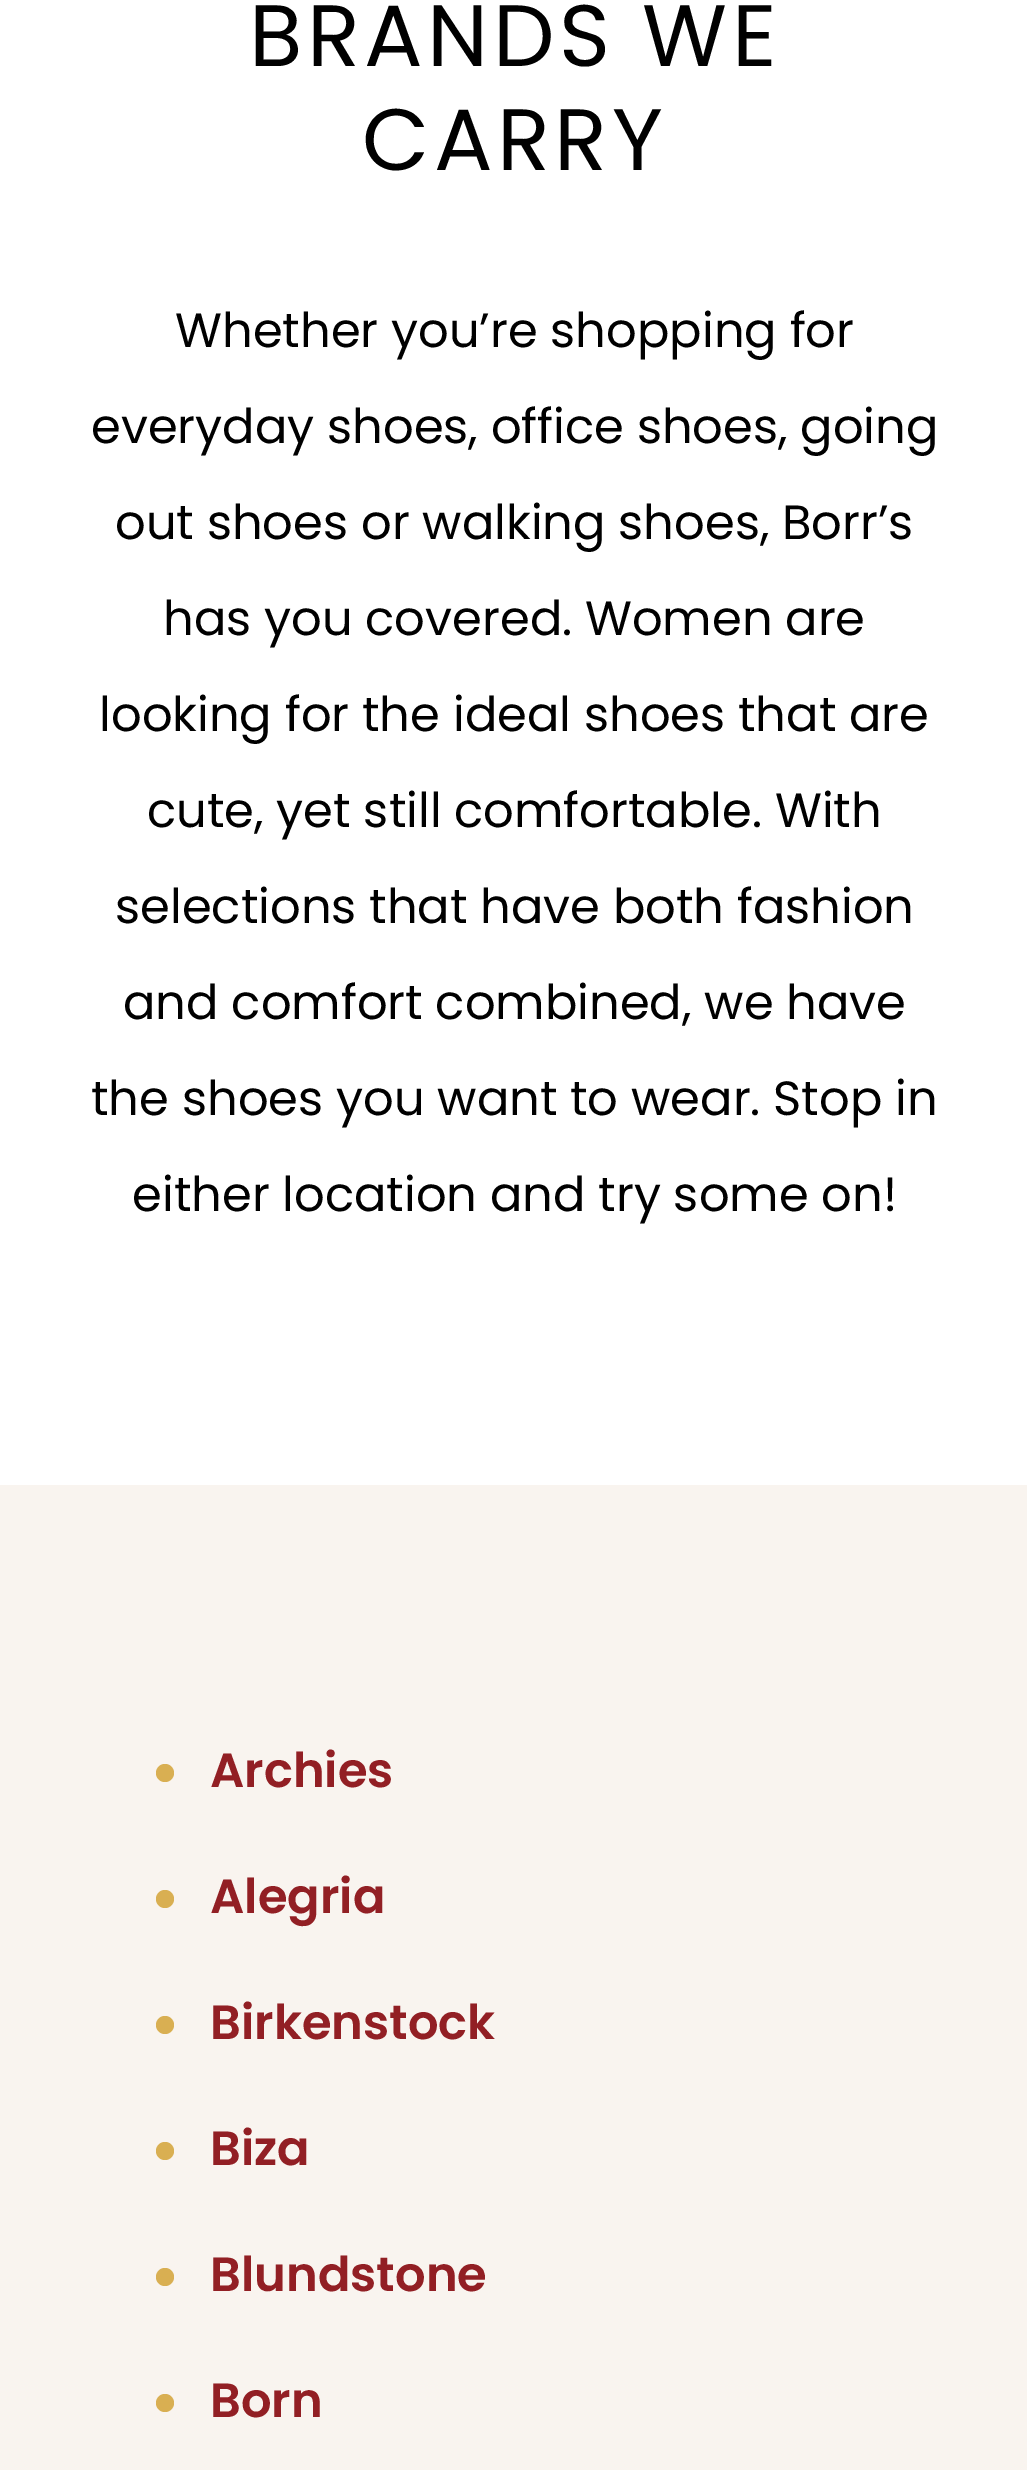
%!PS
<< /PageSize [1027 2470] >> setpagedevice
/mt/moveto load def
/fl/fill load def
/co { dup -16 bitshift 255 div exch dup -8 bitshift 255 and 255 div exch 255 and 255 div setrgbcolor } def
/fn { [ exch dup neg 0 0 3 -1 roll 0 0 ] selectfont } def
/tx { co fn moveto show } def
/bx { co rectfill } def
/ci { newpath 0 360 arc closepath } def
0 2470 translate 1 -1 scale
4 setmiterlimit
0 0 1027 2470 16#FFFFFF bx
0 1485 1027 985 16#F9F4EF bx
16#D9AF52 co
165 1773 9 ci fl
165 1899 9 ci fl
165 2025 9 ci fl
165 2151 9 ci fl
165 2277 9 ci fl
165 2403 9 ci fl
/Poppins-Regular 87 fn
16#000000 co
249 66 mt 4.5 0 (BRANDS WE) ashow
362 170 mt 4.5 0 (CARRY) ashow
(Whether you’re shopping for) 175 347 /Poppins-Regular 48 16#000000 tx
(everyday shoes, office shoes, going) 91 443 /Poppins-Regular 48 16#000000 tx
(out shoes or walking shoes, Borr’s) 115 539 /Poppins-Regular 48 16#000000 tx
(has you covered. Women are) 163 635 /Poppins-Regular 48 16#000000 tx
(looking for the ideal shoes that are) 99 731 /Poppins-Regular 48 16#000000 tx
(cute, yet still comfortable. With) 147 827 /Poppins-Regular 48 16#000000 tx
(selections that have both fashion) 115 923 /Poppins-Regular 48 16#000000 tx
(and comfort combined, we have) 123 1019 /Poppins-Regular 48 16#000000 tx
(the shoes you want to wear. Stop in) 91 1115 /Poppins-Regular 48 16#000000 tx
(either location and try some on!) 132 1211 /Poppins-Regular 48 16#000000 tx
(Archies) 210 1787 /Poppins-SemiBold 48 16#921F24 tx
(Alegria) 210 1913 /Poppins-SemiBold 48 16#921F24 tx
(Birkenstock) 210 2039 /Poppins-SemiBold 48 16#921F24 tx
(Biza) 210 2165 /Poppins-SemiBold 48 16#921F24 tx
(Blundstone) 210 2291 /Poppins-SemiBold 48 16#921F24 tx
(Born) 210 2417 /Poppins-SemiBold 48 16#921F24 tx
showpage
